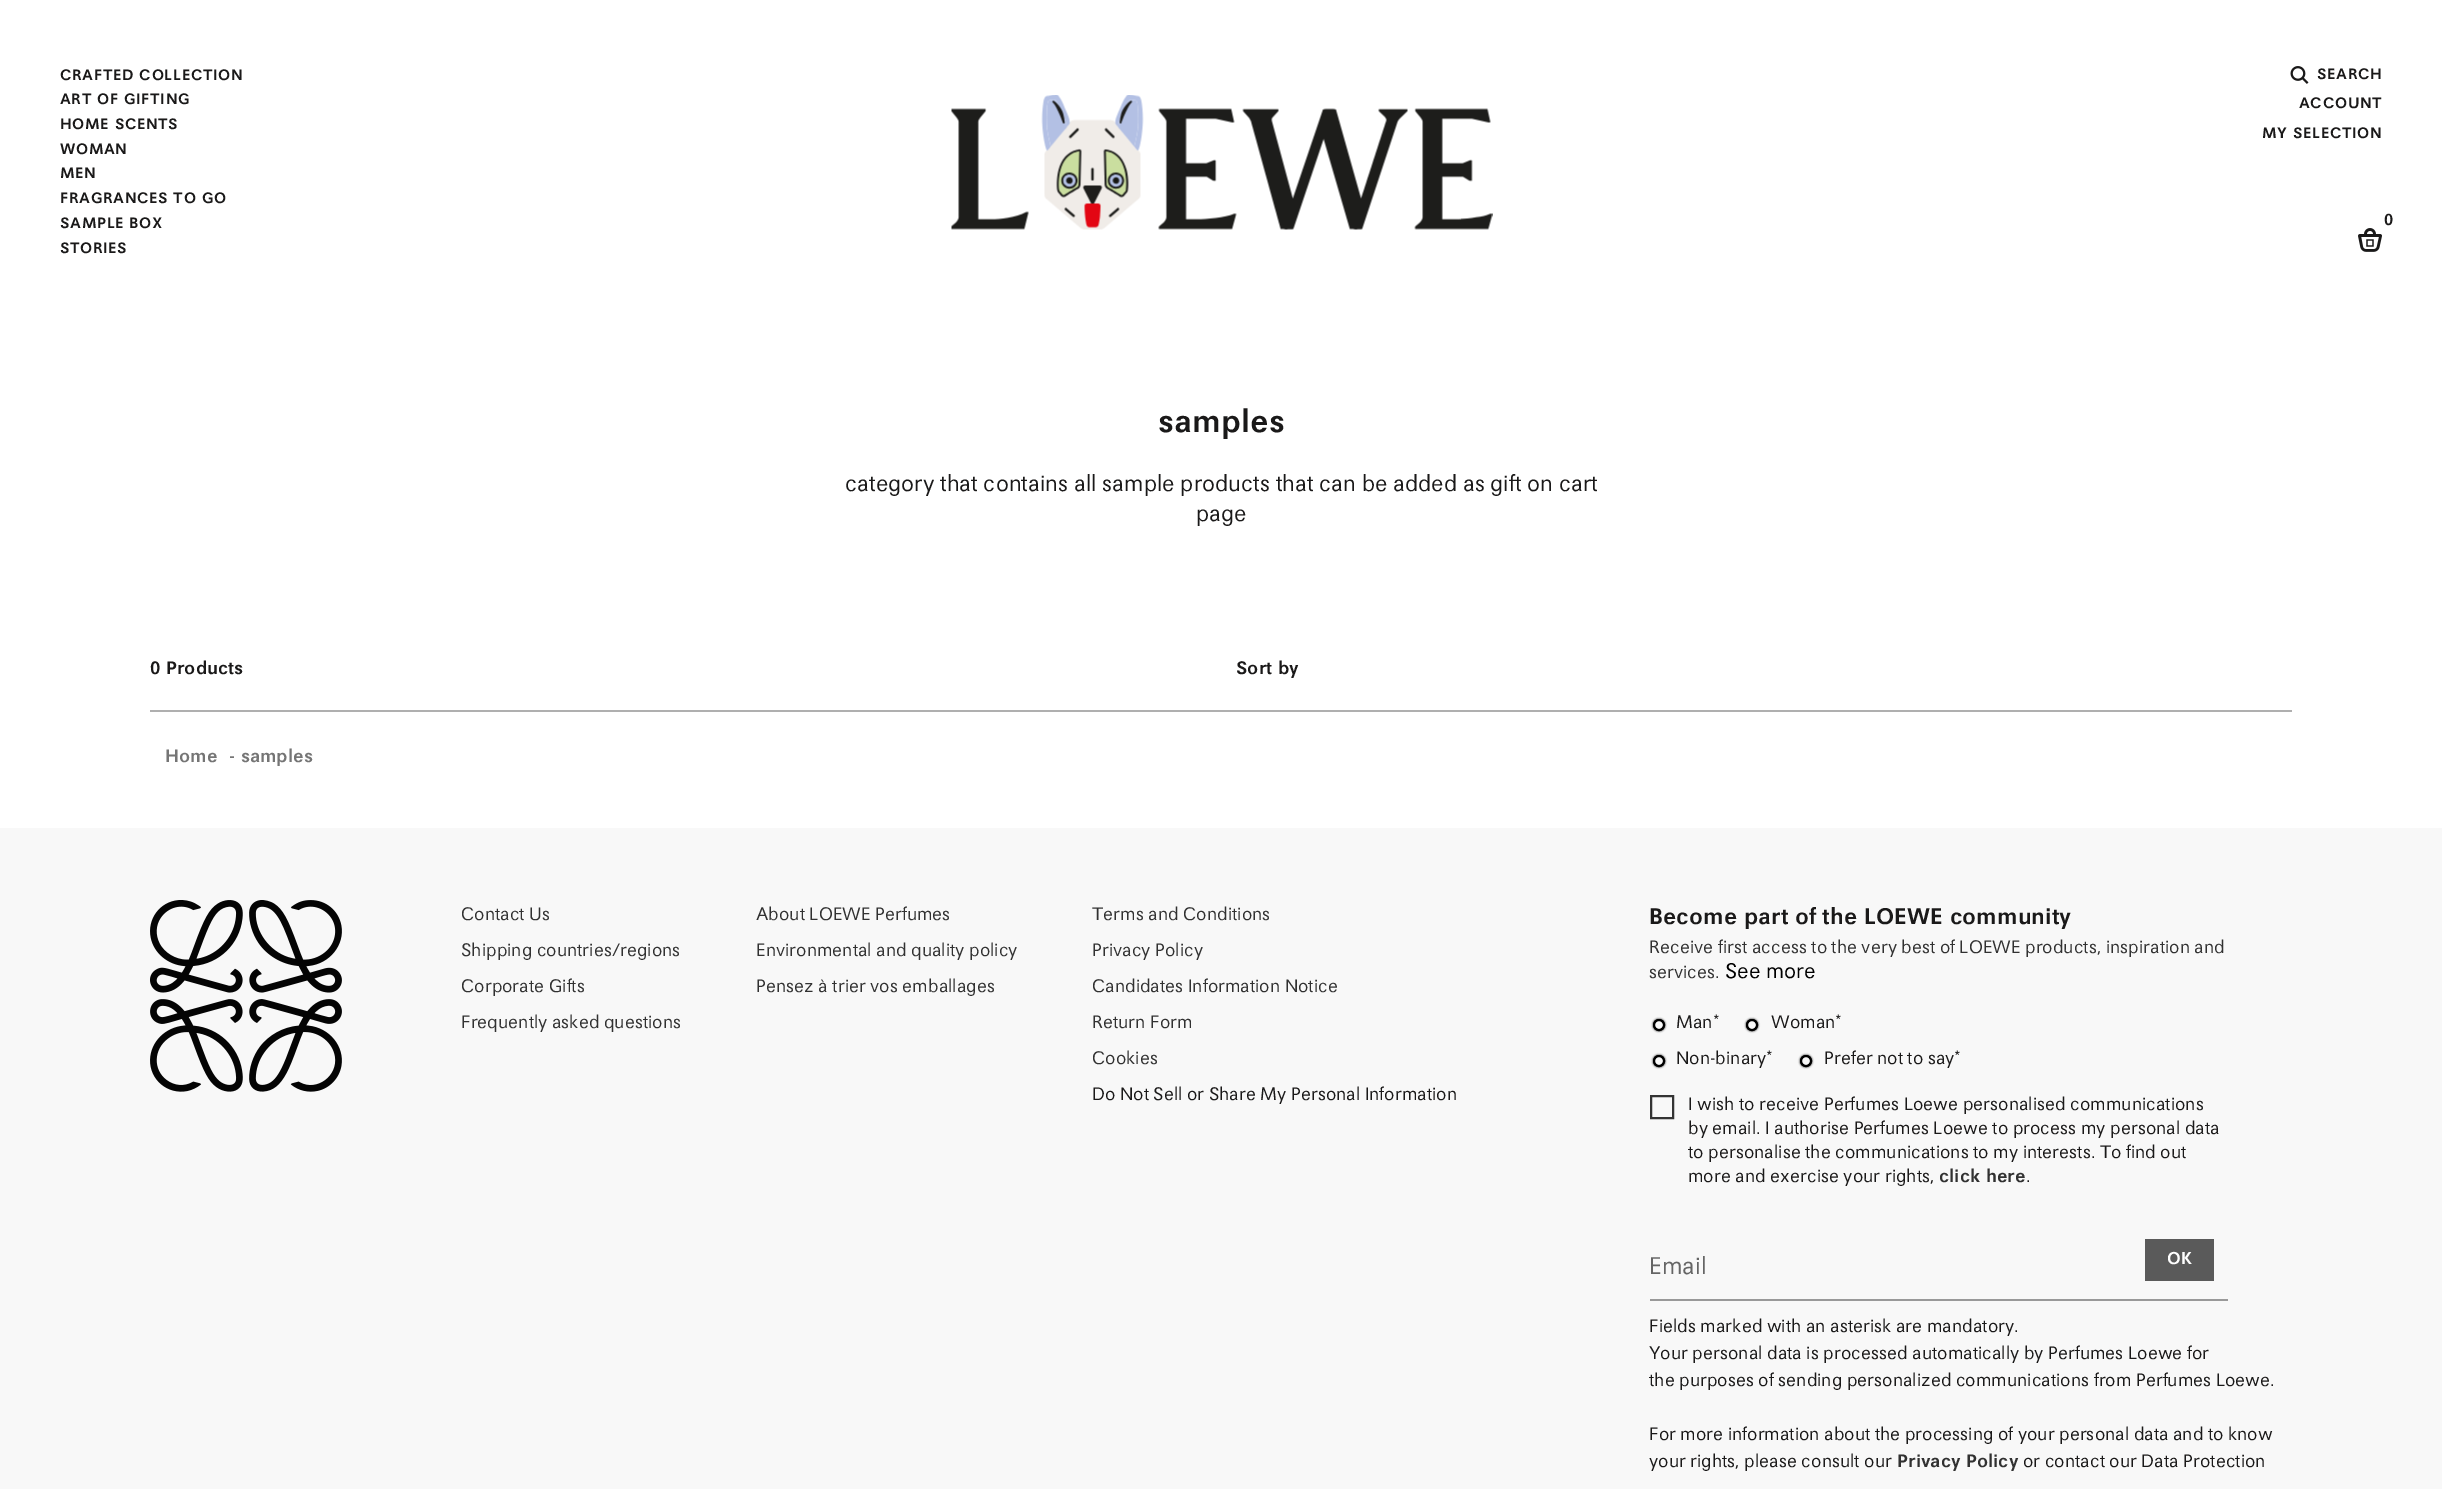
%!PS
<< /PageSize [2442 1489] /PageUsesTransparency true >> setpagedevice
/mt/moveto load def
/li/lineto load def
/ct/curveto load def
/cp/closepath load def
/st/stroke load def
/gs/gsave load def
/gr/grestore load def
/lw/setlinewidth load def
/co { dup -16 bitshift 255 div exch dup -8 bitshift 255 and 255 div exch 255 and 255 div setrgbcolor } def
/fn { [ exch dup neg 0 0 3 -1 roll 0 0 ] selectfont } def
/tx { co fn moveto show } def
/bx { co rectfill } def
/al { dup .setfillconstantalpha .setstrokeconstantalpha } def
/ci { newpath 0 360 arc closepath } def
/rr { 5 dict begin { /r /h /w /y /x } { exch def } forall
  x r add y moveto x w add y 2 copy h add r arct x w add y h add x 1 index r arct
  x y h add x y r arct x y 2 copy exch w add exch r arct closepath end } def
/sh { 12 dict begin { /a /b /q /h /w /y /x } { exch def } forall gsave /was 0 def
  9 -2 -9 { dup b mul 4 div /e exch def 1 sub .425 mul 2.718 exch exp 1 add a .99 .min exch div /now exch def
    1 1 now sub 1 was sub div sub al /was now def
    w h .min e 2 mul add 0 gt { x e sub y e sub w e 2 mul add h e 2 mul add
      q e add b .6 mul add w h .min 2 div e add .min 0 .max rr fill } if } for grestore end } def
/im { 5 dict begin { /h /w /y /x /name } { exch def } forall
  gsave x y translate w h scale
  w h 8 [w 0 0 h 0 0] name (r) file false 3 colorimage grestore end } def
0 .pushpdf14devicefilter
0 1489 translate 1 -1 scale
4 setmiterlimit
0 0 2442 1489 16#FFFFFF bx
(media/1.raw) 951 95 542 135 im
(media/2.raw) 2290 66 19 18 im
(media/3.raw) 2358 228 24 24 im
150 710 2142 2 16#AFAFAF bx
0 828 2442 661 16#F8F8F8 bx
(media/4.raw) 150 900 192 192 im
gs
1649 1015 mt 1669 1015 li 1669 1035 li 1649 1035 li cp 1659 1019 mt 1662.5 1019 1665 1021.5 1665 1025 ct 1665 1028.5 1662.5 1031 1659 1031 ct 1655.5 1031 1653 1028.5 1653 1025 ct 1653 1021.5 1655.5 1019 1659 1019 ct cp eoclip newpath
16#000000 co
1653 1019 12 12 6 1 1 sh
gr
16#000000 co
2 lw
1659 1025 5 ci st
gs
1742 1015 mt 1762 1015 li 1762 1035 li 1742 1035 li cp 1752 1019 mt 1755.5 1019 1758 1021.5 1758 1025 ct 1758 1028.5 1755.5 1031 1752 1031 ct 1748.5 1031 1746 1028.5 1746 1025 ct 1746 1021.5 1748.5 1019 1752 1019 ct cp eoclip newpath
1746 1019 12 12 6 1 1 sh
gr
1752 1025 5 ci st
gs
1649 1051 mt 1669 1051 li 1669 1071 li 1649 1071 li cp 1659 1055 mt 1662.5 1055 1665 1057.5 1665 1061 ct 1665 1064.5 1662.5 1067 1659 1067 ct 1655.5 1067 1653 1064.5 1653 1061 ct 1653 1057.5 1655.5 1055 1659 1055 ct cp eoclip newpath
1653 1055 12 12 6 1 1 sh
gr
1659 1061 5 ci st
gs
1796 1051 mt 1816 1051 li 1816 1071 li 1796 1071 li cp 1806 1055 mt 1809.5 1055 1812 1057.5 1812 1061 ct 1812 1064.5 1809.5 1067 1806 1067 ct 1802.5 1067 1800 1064.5 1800 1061 ct 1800 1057.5 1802.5 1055 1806 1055 ct cp eoclip newpath
1800 1055 12 12 6 1 1 sh
gr
1806 1061 5 ci st
16#333333 co
1651 1096 22 22 rectstroke
1650 1299 578 2 16#999999 bx
2145 1239 69 42 16#5A5A5A bx
/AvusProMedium-Medium 15 fn
16#1A1919 co
60 80 mt .6 0 (CRAFTED COLLECTION) ashow
60 104 mt .6 0 (ART OF GIFTING) ashow
60 129 mt .6 0 (HOME SCENTS) ashow
60 154 mt .6 0 (WOMAN) ashow
60 178 mt .6 0 (MEN) ashow
60 203 mt .6 0 (FRAGRANCES TO GO) ashow
60 228 mt .6 0 (SAMPLE BOX) ashow
60 253 mt .6 0 (STORIES) ashow
2317 79 mt .6 0 (SEARCH) ashow
2299 108 mt .6 0 (ACCOUNT) ashow
2262 138 mt .6 0 (MY SELECTION) ashow
/AvusProMedium-Medium 16 fn
2384 225 mt .6 0 (0) ashow
(samples) 1158 432 /AvusProMedium-Medium 31.5 16#1A1919 tx
(category that contains all sample products that can be added as gift on cart) 845 491 /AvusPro-Regular 22.5 16#1A1919 tx
(page) 1196 521 /AvusPro-Regular 22.5 16#1A1919 tx
(0 Products) 150 674 /AvusProMedium-Medium 18 16#1A1919 tx
(Sort by) 1236 674 /AvusProMedium-Medium 18 16#1A1919 tx
(Home) 165 762 /AvusProMedium-Medium 18 16#757575 tx
(- samples) 229 762 /AvusProMedium-Medium 18 16#757575 tx
(Contact Us) 461 920 /AvusPro-Regular 18 16#313131 tx
(Shipping countries/regions) 461 956 /AvusPro-Regular 18 16#313131 tx
(Corporate Gifts) 461 992 /AvusPro-Regular 18 16#313131 tx
(Frequently asked questions) 461 1028 /AvusPro-Regular 18 16#313131 tx
(About LOEWE Perfumes) 756 920 /AvusPro-Regular 18 16#313131 tx
(Environmental and quality policy) 756 956 /AvusPro-Regular 18 16#313131 tx
(Pensez à trier vos emballages) 756 992 /AvusPro-Regular 18 16#313131 tx
(Terms and Conditions) 1092 920 /AvusPro-Regular 18 16#313131 tx
(Privacy Policy) 1092 956 /AvusPro-Regular 18 16#313131 tx
(Candidates Information Notice) 1092 992 /AvusPro-Regular 18 16#313131 tx
(Return Form) 1092 1028 /AvusPro-Regular 18 16#313131 tx
(Cookies) 1092 1064 /AvusPro-Regular 18 16#313131 tx
(Do Not Sell or Share My Personal Information) 1092 1100 /AvusPro-Regular 18 16#1A1919 tx
(Become part of the LOEWE community) 1649 924 /AvusProMedium-Medium 22.5 16#1A1919 tx
(Receive first access to the very best of LOEWE products, inspiration and) 1649 953 /AvusPro-Regular 18 16#313131 tx
(services.) 1649 978 /AvusPro-Regular 18 16#313131 tx
(See more) 1725 978 /AvusPro-Regular 21 16#000000 tx
(Man*) 1676 1028 /AvusPro-Regular 18 16#1A1919 tx
(Woman*) 1771 1028 /AvusPro-Regular 18 16#1A1919 tx
(Non-binary*) 1676 1064 /AvusPro-Regular 18 16#1A1919 tx
(Prefer not to say*) 1824 1064 /AvusPro-Regular 18 16#1A1919 tx
(I wish to receive Perfumes Loewe personalised communications) 1688 1110 /AvusPro-Regular 18 16#1A1919 tx
(by email. I authorise Perfumes Loewe to process my personal data) 1688 1134 /AvusPro-Regular 18 16#1A1919 tx
(to personalise the communications to my interests. To find out) 1688 1158 /AvusPro-Regular 18 16#1A1919 tx
(more and exercise your rights,) 1688 1182 /AvusPro-Regular 18 16#1A1919 tx
(click here) 1939 1182 /AvusProMedium-Medium 18 16#313131 tx
(.) 2026 1182 /AvusPro-Regular 18 16#1A1919 tx
(Email) 1649 1274 /AvusPro-Regular 24 16#656565 tx
(OK) 2167 1264 /AvusProMedium-Medium 17 16#FEFEFE tx
(Fields marked with an asterisk are mandatory.) 1649 1332 /AvusPro-Regular 18 16#1A1919 tx
(Your personal data is processed automatically by Perfumes Loewe for) 1649 1359 /AvusPro-Regular 18 16#1A1919 tx
(the purposes of sending personalized communications from Perfumes Loewe.) 1649 1386 /AvusPro-Regular 18 16#1A1919 tx
(For more information about the processing of your personal data and to know) 1649 1440 /AvusPro-Regular 18 16#1A1919 tx
(your rights, please consult our) 1649 1467 /AvusPro-Regular 18 16#1A1919 tx
(Privacy Policy) 1897 1467 /AvusProMedium-Medium 18 16#313131 tx
(or contact our Data Protection) 2023 1467 /AvusPro-Regular 18 16#1A1919 tx
.poppdf14devicefilter showpage
